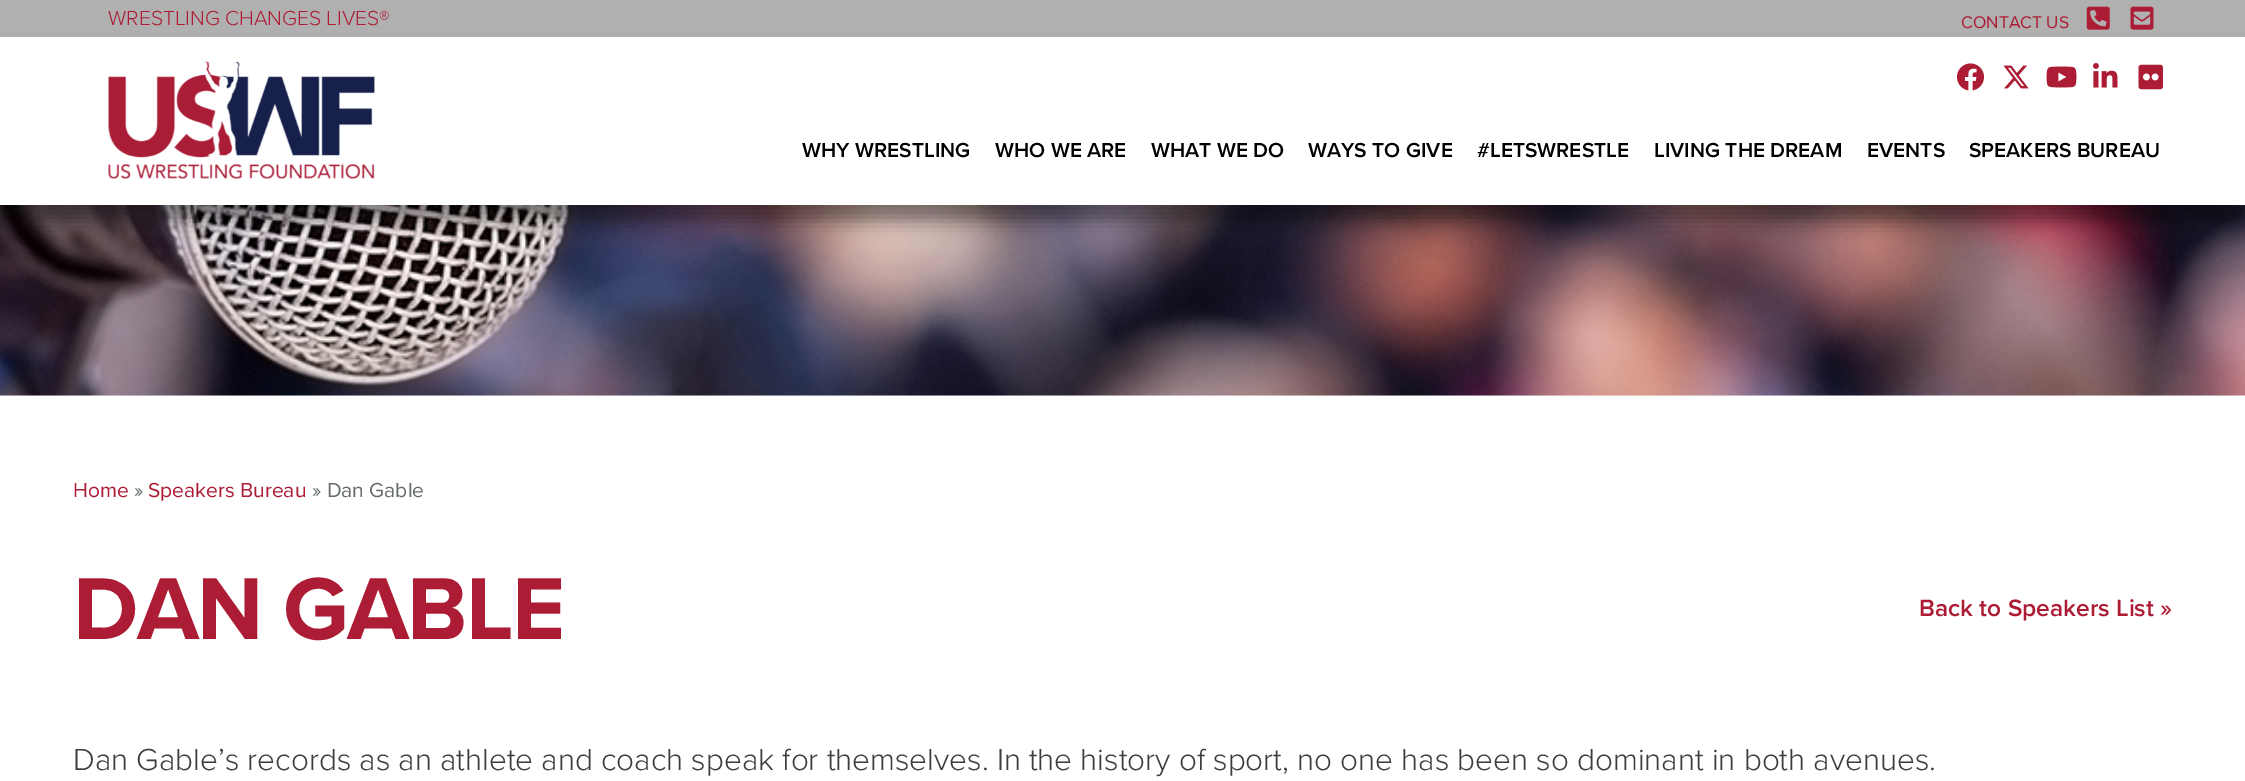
%!PS
<< /PageSize [2245 781] /PageUsesTransparency true >> setpagedevice
/mt/moveto load def
/co { dup -16 bitshift 255 div exch dup -8 bitshift 255 and 255 div exch 255 and 255 div setrgbcolor } def
/fn { [ exch dup neg 0 0 3 -1 roll 0 0 ] selectfont } def
/tx { co fn moveto show } def
/bx { co rectfill } def
/al { dup .setfillconstantalpha .setstrokeconstantalpha } def
/rr { 5 dict begin { /r /h /w /y /x } { exch def } forall
  x r add y moveto x w add y 2 copy h add r arct x w add y h add x 1 index r arct
  x y h add x y r arct x y 2 copy exch w add exch r arct closepath end } def
/sh { 12 dict begin { /a /b /q /h /w /y /x } { exch def } forall gsave /was 0 def
  9 -2 -9 { dup b mul 4 div /e exch def 1 sub .425 mul 2.718 exch exp 1 add a .99 .min exch div /now exch def
    1 1 now sub 1 was sub div sub al /was now def
    w h .min e 2 mul add 0 gt { x e sub y e sub w e 2 mul add h e 2 mul add
      q e add b .6 mul add w h .min 2 div e add .min 0 .max rr fill } if } for grestore end } def
/im { 5 dict begin { /h /w /y /x /name } { exch def } forall
  gsave x y translate w h scale
  w h 8 [w 0 0 h 0 0] name (r) file false 3 colorimage grestore end } def
0 .pushpdf14devicefilter
0 781 translate 1 -1 scale
4 setmiterlimit
0 0 2245 781 16#FFFFFF bx
0 395 2245 1 16#F4F4F4 bx
(media/9.raw) 0 205 2245 191 im
16#000000 co
0 9 2245 205 0 26 .1 sh
0 0 2245 37 16#B0B0B0 bx
(media/1.raw) 2086 6 24 24 im
(media/2.raw) 2130 6 24 24 im
16#000000 co
0 53 2245 168 0 9 .43 sh
0 37 2245 168 16#FFFFFF bx
(media/3.raw) 108 61 267 118 im
(media/4.raw) 1956 63 29 28 im
(media/5.raw) 2003 65 26 24 im
(media/6.raw) 2046 66 31 22 im
(media/7.raw) 2093 63 25 25 im
(media/8.raw) 2138 64 25 26 im
(WRESTLING CHANGES LIVES®) 108 25 /ProximaNova-Light 21 16#AC1C34 tx
(CONTACT US) 1961 28 /ProximaNova-Regular 17.5 16#AC1C34 tx
(WHY WRESTLING) 802 157 /ProximaNova-SemiBold 21 16#000000 tx
(WHO WE ARE) 995 157 /ProximaNova-SemiBold 21 16#000000 tx
(WHAT WE DO) 1151 157 /ProximaNova-SemiBold 21 16#000000 tx
(WAYS TO GIVE) 1308 157 /ProximaNova-SemiBold 21 16#000000 tx
(#LETSWRESTLE) 1477 157 /ProximaNova-SemiBold 21 16#000000 tx
(LIVING THE DREAM) 1654 157 /ProximaNova-SemiBold 21 16#000000 tx
(EVENTS) 1867 157 /ProximaNova-SemiBold 21 16#000000 tx
(SPEAKERS BUREAU) 1969 157 /ProximaNova-SemiBold 21 16#000000 tx
(Home) 73 497 /ProximaNova-Regular 21 16#AC1C34 tx
(») 134 497 /ProximaNova-Regular 21 16#656B6C tx
(Speakers Bureau) 148 497 /ProximaNova-Regular 21 16#AC1C34 tx
(» Dan Gable) 312 497 /ProximaNova-Regular 21 16#656B6C tx
/ProximaNova-Bold 91 fn
16#AC1C34 co
73 639 mt -1.75 0 (DAN GABLE) ashow
(Back to Speakers List ») 1919 616 /ProximaNova-SemiBold 24.5 16#AC1C34 tx
(Dan Gable’s records as an athlete and coach speak for themselves. In the history of sport, no one has been so dominant in both avenues.) 73 770 /ProximaNova-Light 31.5 16#3D3D3D tx
.poppdf14devicefilter showpage
